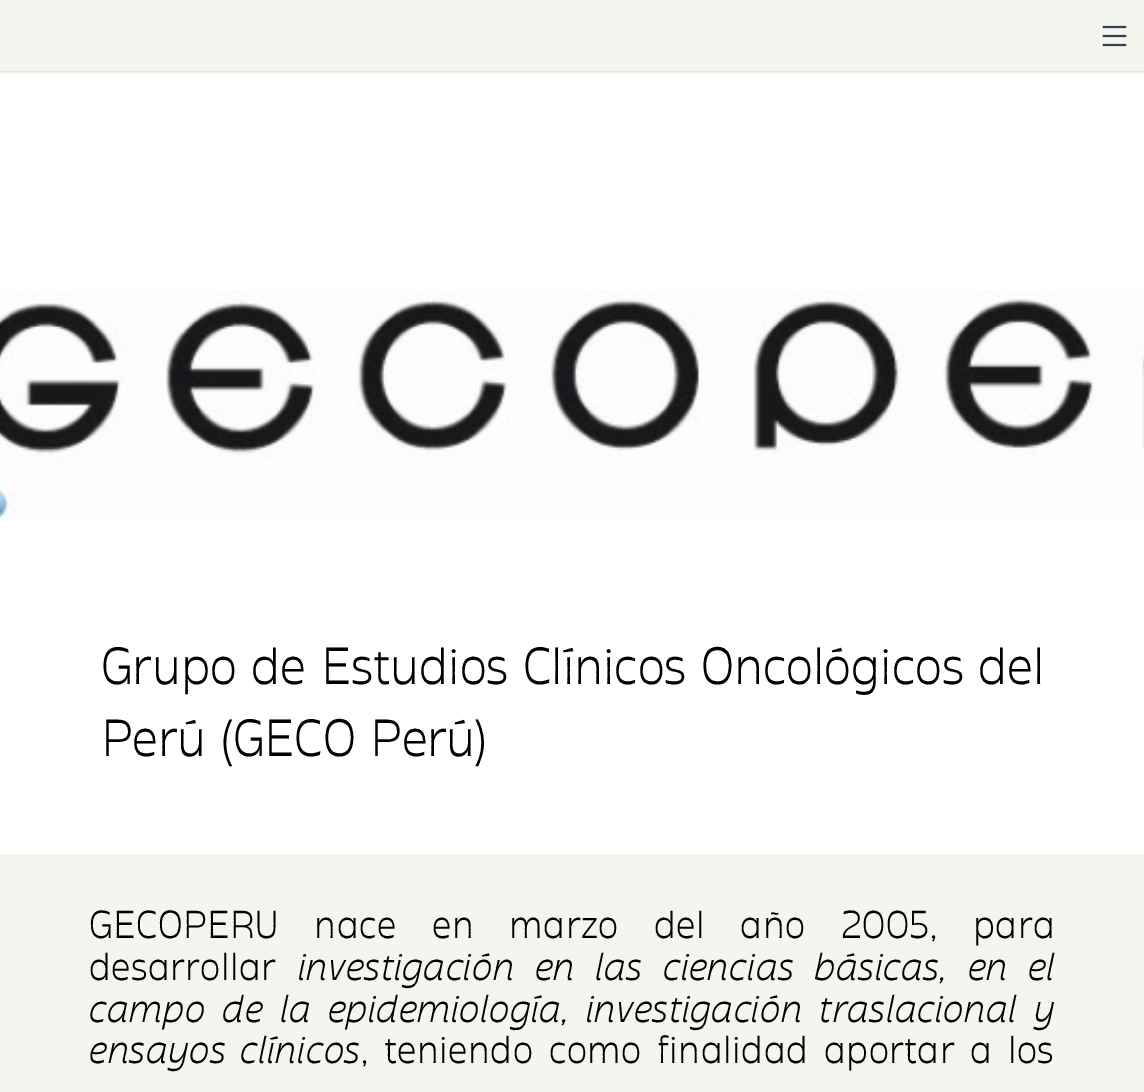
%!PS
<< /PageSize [1144 1092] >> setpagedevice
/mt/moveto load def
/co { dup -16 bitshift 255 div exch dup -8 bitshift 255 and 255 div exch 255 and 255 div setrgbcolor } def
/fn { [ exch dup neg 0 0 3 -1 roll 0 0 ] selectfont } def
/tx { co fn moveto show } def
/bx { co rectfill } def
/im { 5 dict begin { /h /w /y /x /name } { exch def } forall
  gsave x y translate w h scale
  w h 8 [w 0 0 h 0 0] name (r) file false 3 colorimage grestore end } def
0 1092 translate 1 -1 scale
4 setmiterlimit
0 0 1144 1092 16#FFFFFF bx
0 72 1144 1 16#EDEDED bx
0 0 1144 71 16#F5F5EF bx
0 71 1144 1 16#E4E4DE bx
(media/1.raw) 1102 25 25 22 im
(media/2.raw) 0 290 1144 231 im
0 854 1144 238 16#F5F5EF bx
(Grupo de Estudios Clínicos Oncológicos del) 101 684 /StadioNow-ExtraLight 52 16#000000 tx
(Perú \(GECO Perú\)) 101 756 /StadioNow-ExtraLight 52 16#000000 tx
/StadioNow-ExtraLight 38.9 fn
89 938 mt 23.5 0 32 .58 0 (GECOPERU nace en marzo del año 2005, para) awidthshow
89 980 mt .58 0 (desarrollar) ashow
/StadioNow-ExtraLightItalic 38.9 fn
298 980 mt 9.5 0 32 .58 0 (investigación en las ciencias básicas, en el) awidthshow
89 1022 mt 6.25 0 32 .58 0 (campo de la epidemiología, investigación traslacional y) awidthshow
89 1063 mt 3.5 0 32 .58 0 (ensayos clínicos) awidthshow
/StadioNow-ExtraLight 38.9 fn
361 1063 mt 3.5 0 32 .58 0 (, teniendo como finalidad aportar a los) awidthshow
showpage
